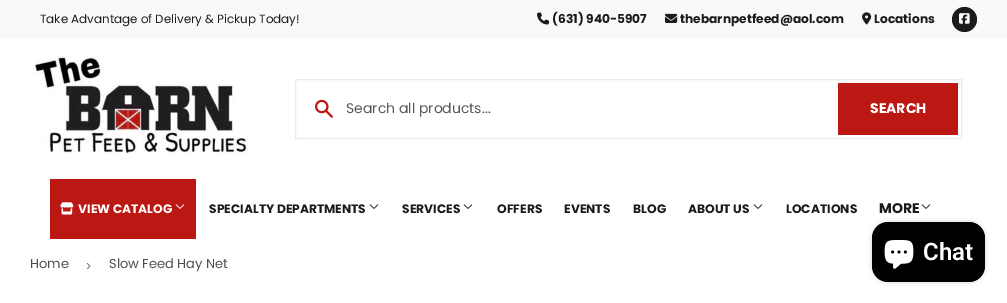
%!PS
<< /PageSize [1007 303] /PageUsesTransparency true >> setpagedevice
/fl/fill load def
/co { dup -16 bitshift 255 div exch dup -8 bitshift 255 and 255 div exch 255 and 255 div setrgbcolor } def
/fn { [ exch dup neg 0 0 3 -1 roll 0 0 ] selectfont } def
/tx { co fn moveto show } def
/bx { co rectfill } def
/al { dup .setfillconstantalpha .setstrokeconstantalpha } def
/ci { newpath 0 360 arc closepath } def
/rr { 5 dict begin { /r /h /w /y /x } { exch def } forall
  x r add y moveto x w add y 2 copy h add r arct x w add y h add x 1 index r arct
  x y h add x y r arct x y 2 copy exch w add exch r arct closepath end } def
/sh { 12 dict begin { /a /b /q /h /w /y /x } { exch def } forall gsave /was 0 def
  9 -2 -9 { dup b mul 4 div /e exch def 1 sub .425 mul 2.718 exch exp 1 add a .99 .min exch div /now exch def
    1 1 now sub 1 was sub div sub al /was now def
    w h .min e 2 mul add 0 gt { x e sub y e sub w e 2 mul add h e 2 mul add
      q e add b .6 mul add w h .min 2 div e add .min 0 .max rr fill } if } for grestore end } def
/im { 5 dict begin { /h /w /y /x /name } { exch def } forall
  gsave x y translate w h scale
  w h 8 [w 0 0 h 0 0] name (r) file false 3 colorimage grestore end } def
0 .pushpdf14devicefilter
0 303 translate 1 -1 scale
4 setmiterlimit
0 0 1007 303 16#FFFFFF bx
0 0 1007 39 16#F9F9F9 bx
(media/1.raw) 537 12 13 13 im
(media/2.raw) 665 13 13 10 im
(media/3.raw) 862 12 10 13 im
16#1B1B1B co
964.5 19.5 12.5 ci fl
(media/4.raw) 959 13 11 11 im
(media/5.raw) 35 56 214 98 im
16#EAEAEA co
295.5 79.5 666 59 rectstroke
(media/6.raw) 315 99 18 19 im
838 83 120 52 16#BB1813 bx
50 179 146 60 16#BB1813 bx
(media/7.raw) 60 202 14 13 im
(media/8.raw) 175 204 10 5 im
(media/9.raw) 369 204 10 5 im
(media/9.raw) 463 204 10 5 im
(media/9.raw) 753 204 10 5 im
(media/9.raw) 921 204 10 5 im
16#000000 co
872 222 113 60 16 2.5 .15 sh
872 222 113 60 16 rr fl
(media/10.raw) 884 240 30 29 im
(Take Advantage of Delivery & Pickup Today!) 40 23 /Poppins-Regular 11.9 16#1B1B1B tx
(\(631\) 940-5907) 552 23 /Poppins-Bold 12.25 16#1B1B1B tx
(thebarnpetfeed@aol.com) 680 23 /Poppins-Bold 12.25 16#1B1B1B tx
(Locations) 874 23 /Poppins-Bold 12.25 16#1B1B1B tx
(Search all products...) 346 113 /Poppins-Regular 14 16#585858 tx
(SEARCH) 870 113 /Poppins-Bold 14 16#FFFFFF tx
(VIEW CATALOG) 78 213 /Poppins-Bold 12.25 16#FFFFFF tx
(SPECIALTY DEPARTMENTS) 209 213 /Poppins-Bold 12.25 16#1B1B1B tx
(SERVICES) 402 213 /Poppins-Bold 12.25 16#1B1B1B tx
(OFFERS) 497 213 /Poppins-Bold 12.25 16#1B1B1B tx
(EVENTS) 564 213 /Poppins-Bold 12.25 16#1B1B1B tx
(BLOG) 633 213 /Poppins-Bold 12.25 16#1B1B1B tx
(ABOUT US) 688 213 /Poppins-Bold 12.25 16#1B1B1B tx
(LOCATIONS) 786 213 /Poppins-Bold 12.25 16#1B1B1B tx
(MORE) 879 213 /Poppins-Bold 14 16#1B1B1B tx
(Chat) 923 260 /Roboto-SemiBold 24 16#FFFFFF tx
(Home) 30 268 /Poppins-Regular 13 16#4D4D4D tx
(›) 86 270 /LiberationSans-Regular 15 16#767676 tx
(Slow Feed Hay Net) 109 268 /Poppins-Regular 13 16#4D4D4D tx
.poppdf14devicefilter showpage
